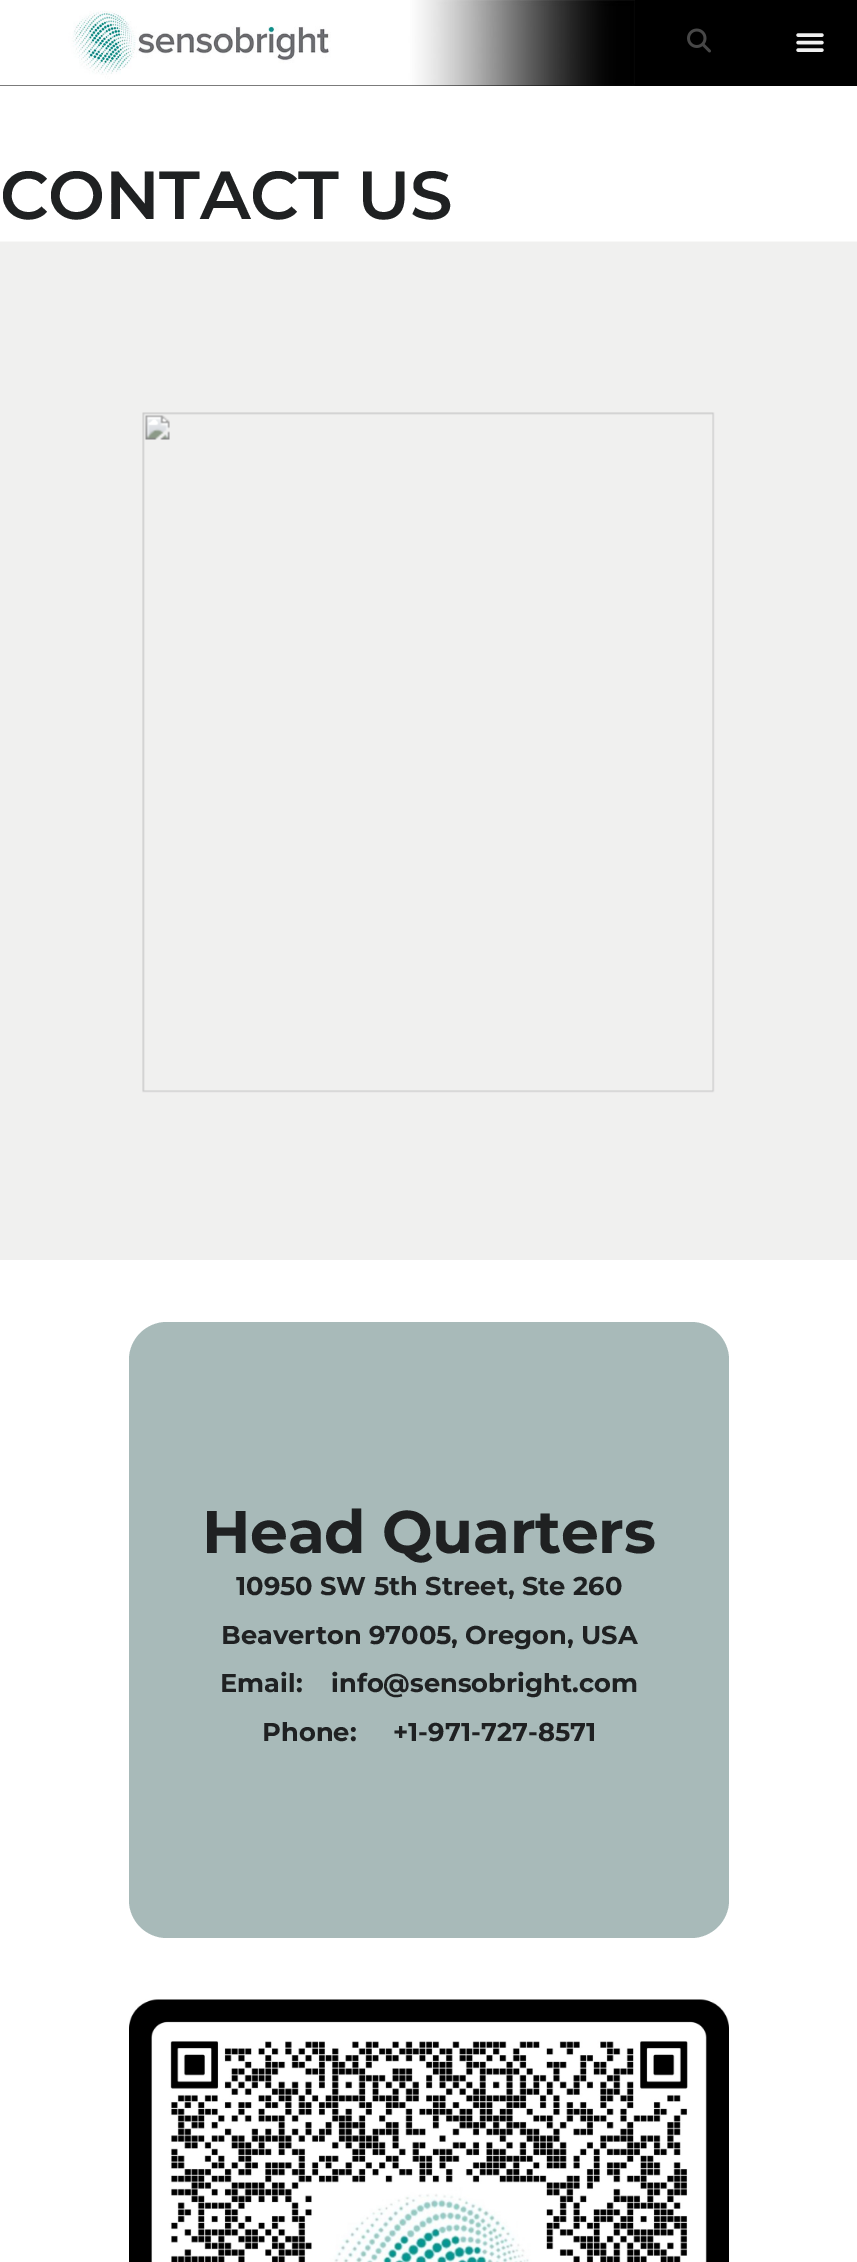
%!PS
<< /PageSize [857 2262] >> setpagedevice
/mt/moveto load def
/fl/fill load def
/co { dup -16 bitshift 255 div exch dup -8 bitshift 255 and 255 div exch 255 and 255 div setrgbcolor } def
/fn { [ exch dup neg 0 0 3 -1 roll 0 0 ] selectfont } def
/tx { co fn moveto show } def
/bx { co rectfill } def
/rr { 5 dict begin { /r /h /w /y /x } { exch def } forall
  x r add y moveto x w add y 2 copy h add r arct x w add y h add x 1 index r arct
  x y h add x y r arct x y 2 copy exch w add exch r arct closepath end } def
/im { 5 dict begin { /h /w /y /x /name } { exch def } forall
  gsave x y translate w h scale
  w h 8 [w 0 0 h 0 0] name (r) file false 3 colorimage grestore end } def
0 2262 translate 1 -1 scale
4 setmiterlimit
0 0 857 2262 16#FFFFFF bx
0 0 857 86 16#000000 bx
(media/1.raw) 0 0 635 86 im
(media/2.raw) 687 28 24 25 im
(media/3.raw) 796 33 28 19 im
(media/4.raw) 0 241 857 1019 im
16#A8BAB9 co
129 1322 600 616 38 rr fl
(media/5.raw) 129 1999 600 263 im
/Montserrat-SemiBold 67.75 fn
16#1F2122 co
0 219 mt -.4 0 (CONTACT US) ashow
/Montserrat-Bold 60 fn
202 1553 mt -.4 0 (Head Quarters) ashow
(10950 SW 5th Street, Ste 260) 236 1595 /Montserrat-Bold 25.75 16#1F2122 tx
(Beaverton 97005, Oregon, USA) 221 1644 /Montserrat-Bold 25.75 16#1F2122 tx
(Email:) 220 1692 /Montserrat-Bold 25.75 16#1F2122 tx
(info@sensobright.com) 331 1692 /Montserrat-Bold 25.75 16#1F2122 tx
(Phone:     +1-971-727-8571) 262 1741 /Montserrat-Bold 25.75 16#1F2122 tx
showpage
